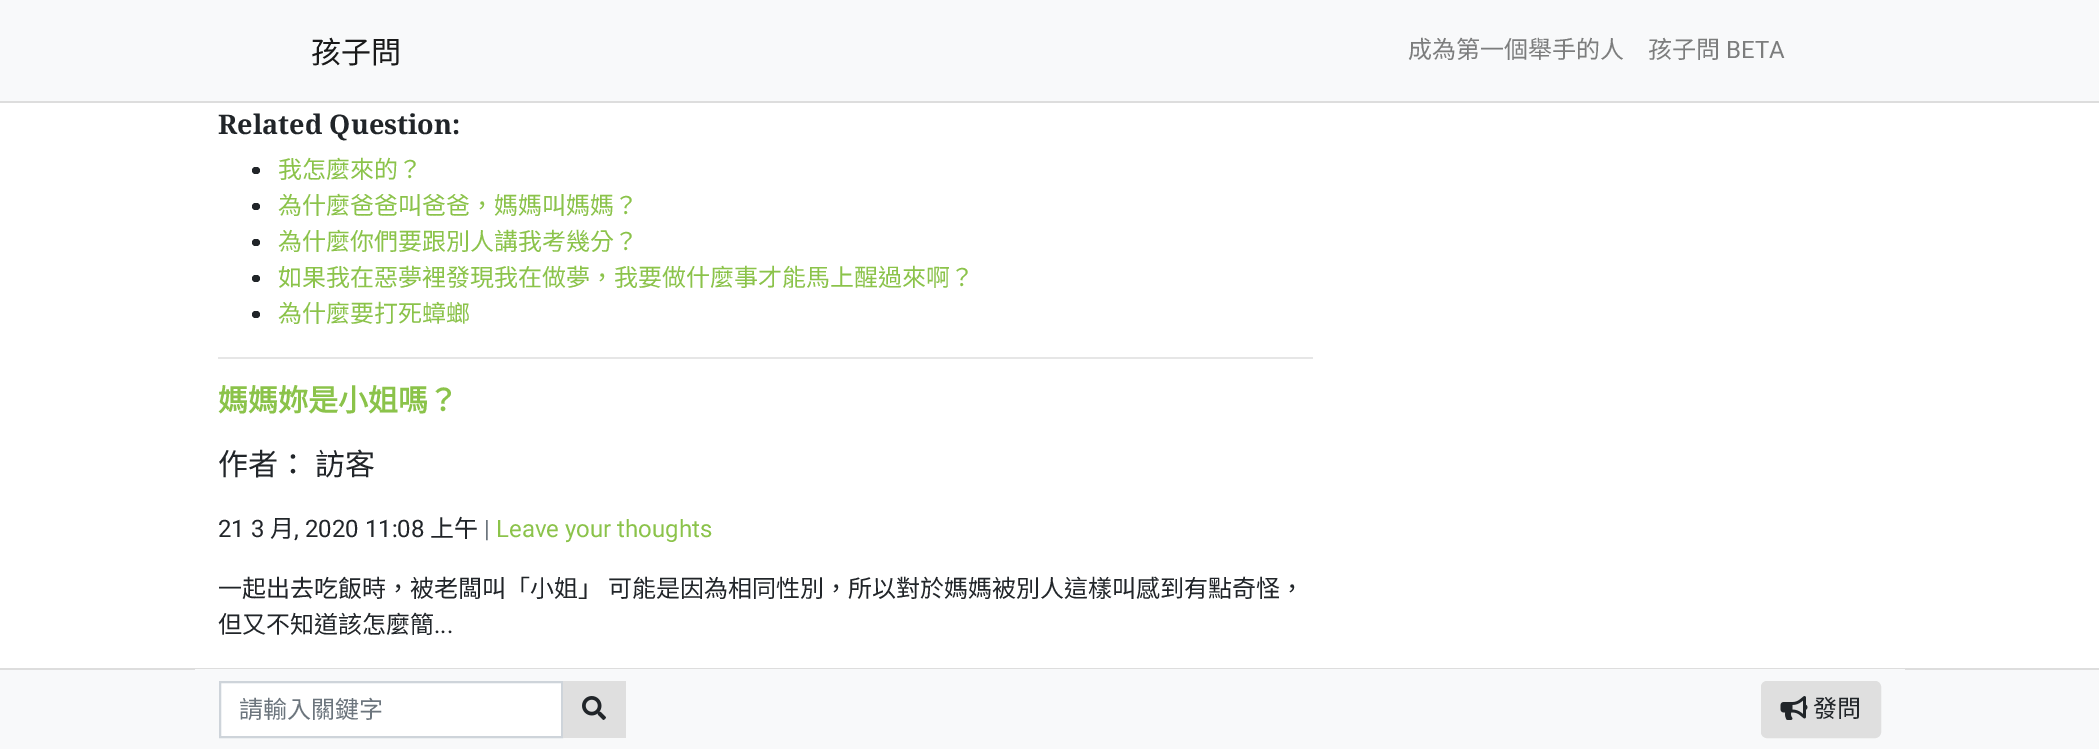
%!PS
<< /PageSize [2099 749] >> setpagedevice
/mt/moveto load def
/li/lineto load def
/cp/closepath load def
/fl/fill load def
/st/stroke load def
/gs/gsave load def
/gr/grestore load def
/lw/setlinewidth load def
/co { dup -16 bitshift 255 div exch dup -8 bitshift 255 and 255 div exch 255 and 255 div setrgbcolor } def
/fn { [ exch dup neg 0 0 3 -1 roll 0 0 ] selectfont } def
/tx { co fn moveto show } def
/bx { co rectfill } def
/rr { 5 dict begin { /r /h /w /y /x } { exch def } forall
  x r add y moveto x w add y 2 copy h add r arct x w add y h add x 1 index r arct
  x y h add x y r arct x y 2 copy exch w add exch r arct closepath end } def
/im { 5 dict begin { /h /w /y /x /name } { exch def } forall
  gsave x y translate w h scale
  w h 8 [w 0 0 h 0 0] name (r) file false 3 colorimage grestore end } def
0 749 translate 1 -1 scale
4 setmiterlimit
0 0 2099 749 16#FFFFFF bx
0 0 2099 101 16#F8F9FA bx
0 101 2099 2 16#DDDDDD bx
16#212529 co
252 167 8 7 3.5 rr fl
252 203 8 7 3.5 rr fl
252 239 8 7 3.5 rr fl
252 275 8 7 3.5 rr fl
252 311 8 7 3.5 rr fl
218 357 1095 2 16#E6E6E6 bx
0 670 2099 79 16#F8F9FA bx
0 668 2099 2 16#DDDDDD bx
195 669 1710 1 16#F8F9FA bx
16#FFFFFF co
220 682 mt 562 682 li 562 737 li 220 737 li cp gs fl gr
16#CED4DA co
2 lw
st
563 681 63 57 16#DFDFDF bx
(media/1.raw) 582 696 24 24 im
1762 682 118 55 5 rr gs fl gr
st
(media/2.raw) 1780 696 28 24 im
(孩子問) 311 63 /NotoSansCJKTC-Regular 30 16#191919 tx
(成為第一個舉手的人) 1408 58 /NotoSansCJKTC-Regular 24 16#7C7D7D tx
(孩子問) 1648 58 /NotoSansCJKTC-Regular 24 16#7C7D7D tx
(BETA) 1726 58 /Roboto-Regular 24 16#7C7D7D tx
(Related Question:) 218 134 /NotoSerif-Bold 27 16#212529 tx
(我怎麼來的？) 278 178 /NotoSansCJKTC-Regular 24 16#8BC34A tx
(為什麼爸爸叫爸爸，媽媽叫媽媽？) 278 214 /NotoSansCJKTC-Regular 24 16#8BC34A tx
(為什麼你們要跟別人講我考幾分？) 278 250 /NotoSansCJKTC-Regular 24 16#8BC34A tx
(如果我在惡夢裡發現我在做夢，我要做什麼事才能馬上醒過來啊？) 278 286 /NotoSansCJKTC-Regular 24 16#8BC34A tx
(為什麼要打死蟑螂) 278 322 /NotoSansCJKTC-Regular 24 16#8BC34A tx
(媽媽妳是小姐嗎？) 218 411 /NotoSansCJKTC-Bold 30 16#8BC34A tx
(作者：) 218 475 /NotoSansCJKTC-Regular 30 16#212529 tx
(訪客) 315 475 /NotoSansCJKTC-Regular 30 16#212529 tx
(21 3) 218 537 /Roboto-Regular 24 16#212529 tx
(月) 270 537 /NotoSansCJKTC-Regular 24 16#212529 tx
(, 2020 11:08) 294 537 /Roboto-Regular 24 16#212529 tx
(上午) 430 537 /NotoSansCJKTC-Regular 24 16#212529 tx
(|) 484 537 /Roboto-Regular 24 16#6C757D tx
(Leave your thoughts) 496 537 /Roboto-Regular 24 16#8BC34A tx
/NotoSansCJKTC-Regular 24 fn
16#212529 co
218 597 mt 1 0 32 (一起出去吃飯時，被老闆叫「小姐」 可能是因為相同性別，所以對於媽媽被別人這樣叫感到有點奇怪，) widthshow
(但又不知道該怎麼簡) 218 633 /NotoSansCJKTC-Regular 24 16#212529 tx
(...) 434 633 /Roboto-Regular 24 16#212529 tx
(請輸入關鍵字) 239 718 /NotoSansCJKTC-Regular 24 16#6C757D tx
(發問) 1813 717 /NotoSansCJKTC-Regular 24 16#212529 tx
showpage
